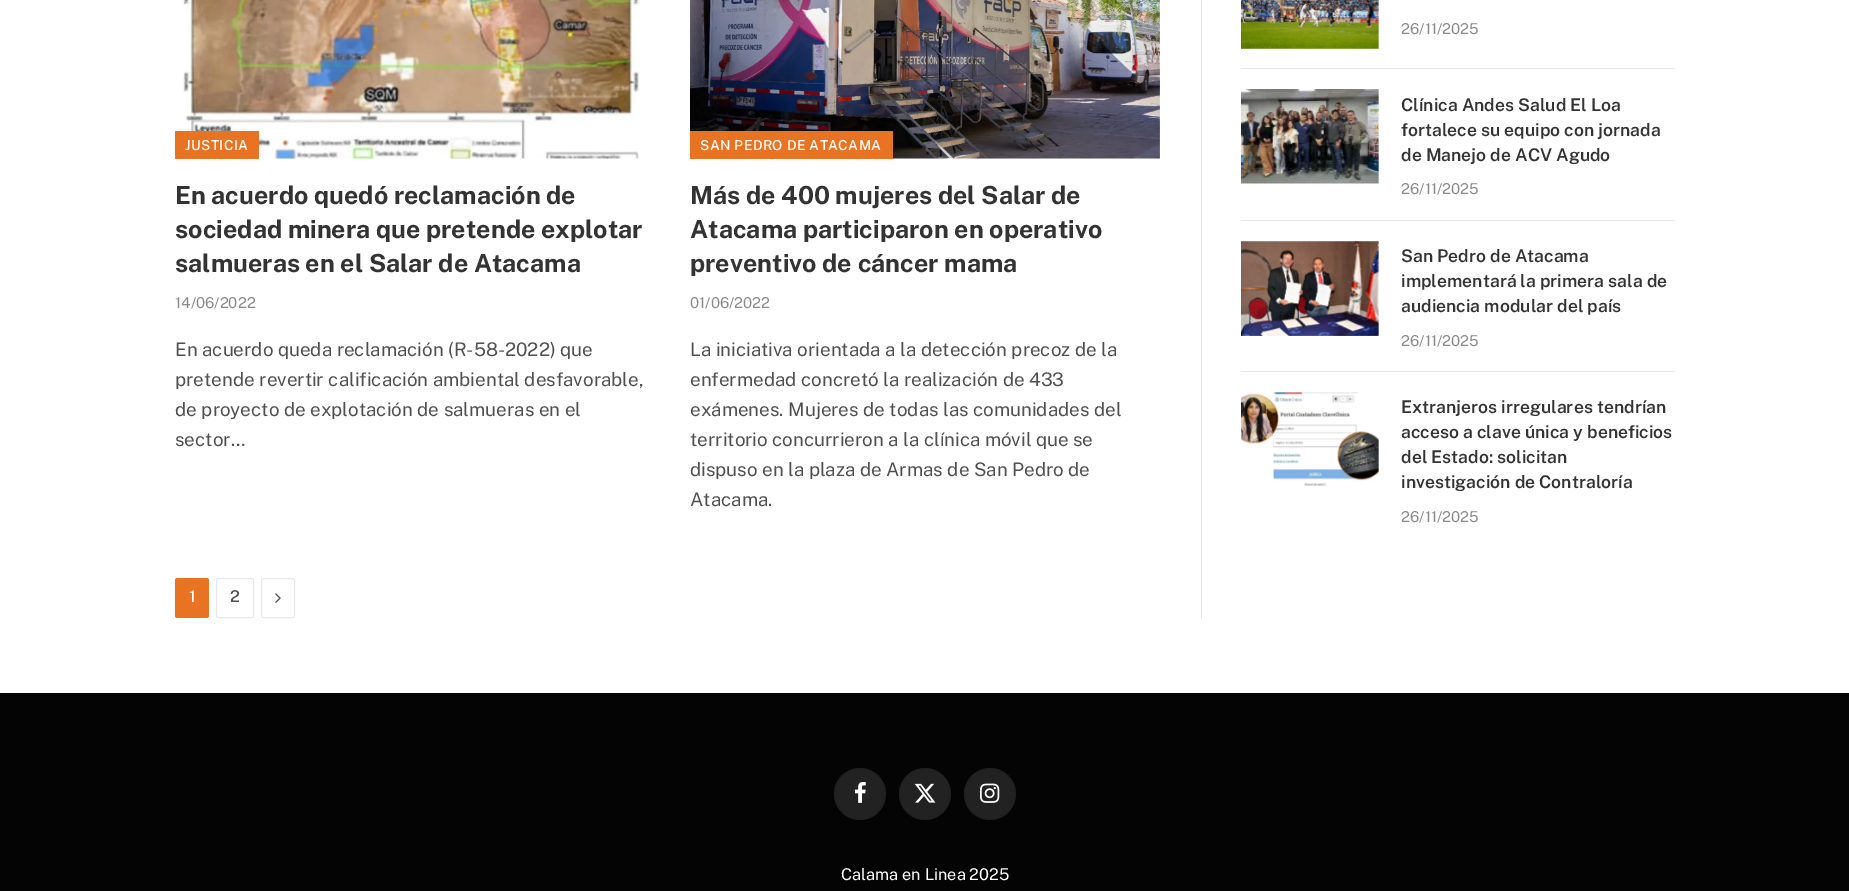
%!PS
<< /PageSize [1849 891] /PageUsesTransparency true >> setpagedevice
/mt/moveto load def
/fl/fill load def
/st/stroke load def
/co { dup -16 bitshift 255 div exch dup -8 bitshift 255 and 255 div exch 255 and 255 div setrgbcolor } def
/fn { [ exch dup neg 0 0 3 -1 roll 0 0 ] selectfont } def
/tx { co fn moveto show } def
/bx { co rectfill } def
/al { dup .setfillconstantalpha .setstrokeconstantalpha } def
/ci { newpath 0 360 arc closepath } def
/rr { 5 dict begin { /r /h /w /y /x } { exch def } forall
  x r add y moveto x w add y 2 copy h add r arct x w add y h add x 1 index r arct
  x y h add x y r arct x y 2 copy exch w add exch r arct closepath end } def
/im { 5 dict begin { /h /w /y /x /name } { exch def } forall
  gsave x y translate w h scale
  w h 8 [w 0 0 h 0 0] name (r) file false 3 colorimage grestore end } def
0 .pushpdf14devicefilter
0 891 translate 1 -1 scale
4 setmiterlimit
0 0 1849 891 16#FFFFFF bx
(media/1.raw) 182 0 458 159 im
16#E87322 co
175 131 84 28 1 rr fl
(media/2.raw) 690 0 470 159 im
690 131 203 28 1 rr fl
175 578 34 40 2.5 rr fl
16#E8E8E8 co
216.5 578.5 37 39 2 rr st
261.5 578.5 33 39 2 rr st
(media/3.raw) 275 593 6 10 im
1201 0 1 618 16#E2E2E2 bx
(media/4.raw) 1241 0 138 49 im
1241 68 434 1 16#E8E8E8 bx
(media/5.raw) 1241 89 138 95 im
1241 220 434 1 16#E8E8E8 bx
(media/6.raw) 1241 241 138 95 im
1241 371 434 1 16#E8E8E8 bx
(media/7.raw) 1241 392 138 95 im
0 693 1849 198 16#040404 bx
16#222222 co
860 794 26 ci fl
0.09 al
16#000000 co
860 794 25.5 ci st
1 al
(media/8.raw) 854 782 12 21 im
16#222222 co
925 794 26 ci fl
0.09 al
16#000000 co
925 794 25.5 ci st
1 al
(media/9.raw) 914 783 22 20 im
16#222222 co
990 794 26 ci fl
0.09 al
16#000000 co
990 794 25.5 ci st
1 al
(media/10.raw) 980 783 20 20 im
/PublicSans-Medium 13.75 fn
16#FFFFFF co
185 150 mt .4 0 (JUSTICIA) ashow
(En acuerdo quedó reclamación de) 175 204 /PublicSans-Bold 25 16#333333 tx
(sociedad minera que pretende explotar) 175 238 /PublicSans-Bold 25 16#333333 tx
(salmueras en el Salar de Atacama) 175 272 /PublicSans-Bold 25 16#333333 tx
(14/06/2022) 175 308 /PublicSans-Regular 15 16#8A8A8A tx
(En acuerdo queda reclamación \(R-58-2022\) que) 175 356 /PublicSans-Regular 18.75 16#505050 tx
(pretende revertir calificación ambiental desfavorable,) 175 386 /PublicSans-Regular 18.75 16#505050 tx
(de proyecto de explotación de salmueras en el) 175 416 /PublicSans-Regular 18.75 16#505050 tx
(sector…) 175 446 /PublicSans-Regular 18.75 16#505050 tx
/PublicSans-Medium 13.75 fn
16#FFFFFF co
700 150 mt .4 0 (SAN PEDRO DE ATACAMA) ashow
(Más de 400 mujeres del Salar de) 690 204 /PublicSans-Bold 25 16#333333 tx
(Atacama participaron en operativo) 690 238 /PublicSans-Bold 25 16#333333 tx
(preventivo de cáncer mama) 690 272 /PublicSans-Bold 25 16#333333 tx
(01/06/2022) 690 308 /PublicSans-Regular 15 16#8A8A8A tx
(La iniciativa orientada a la detección precoz de la) 690 356 /PublicSans-Regular 18.75 16#505050 tx
(enfermedad concretó la realización de 433) 690 386 /PublicSans-Regular 18.75 16#505050 tx
(exámenes. Mujeres de todas las comunidades del) 690 416 /PublicSans-Regular 18.75 16#505050 tx
(territorio concurrieron a la clínica móvil que se) 690 446 /PublicSans-Regular 18.75 16#505050 tx
(dispuso en la plaza de Armas de San Pedro de) 690 476 /PublicSans-Regular 18.75 16#505050 tx
(Atacama.) 690 506 /PublicSans-Regular 18.75 16#505050 tx
(1) 189 602 /PublicSans-Medium 16.25 16#FFFFFF tx
(2) 230 602 /PublicSans-Medium 16.25 16#505050 tx
(26/11/2025) 1401 34 /PublicSans-Regular 15 16#8A8A8A tx
(Clínica Andes Salud El Loa) 1401 111 /PublicSans-SemiBold 17.5 16#333333 tx
(fortalece su equipo con jornada) 1401 136 /PublicSans-SemiBold 17.5 16#333333 tx
(de Manejo de ACV Agudo) 1401 161 /PublicSans-SemiBold 17.5 16#333333 tx
(26/11/2025) 1401 194 /PublicSans-Regular 15 16#8A8A8A tx
(San Pedro de Atacama) 1401 262 /PublicSans-SemiBold 17.5 16#333333 tx
(implementará la primera sala de) 1401 287 /PublicSans-SemiBold 17.5 16#333333 tx
(audiencia modular del país) 1401 312 /PublicSans-SemiBold 17.5 16#333333 tx
(26/11/2025) 1401 346 /PublicSans-Regular 15 16#8A8A8A tx
(Extranjeros irregulares tendrían) 1401 413 /PublicSans-SemiBold 17.5 16#333333 tx
(acceso a clave única y beneficios) 1401 438 /PublicSans-SemiBold 17.5 16#333333 tx
(del Estado: solicitan) 1401 463 /PublicSans-SemiBold 17.5 16#333333 tx
(investigación de Contraloría) 1401 488 /PublicSans-SemiBold 17.5 16#333333 tx
(26/11/2025) 1401 522 /PublicSans-Regular 15 16#8A8A8A tx
(Calama en Linea 2025) 841 880 /PublicSans-Regular 16.25 16#FFFFFF tx
.poppdf14devicefilter showpage
